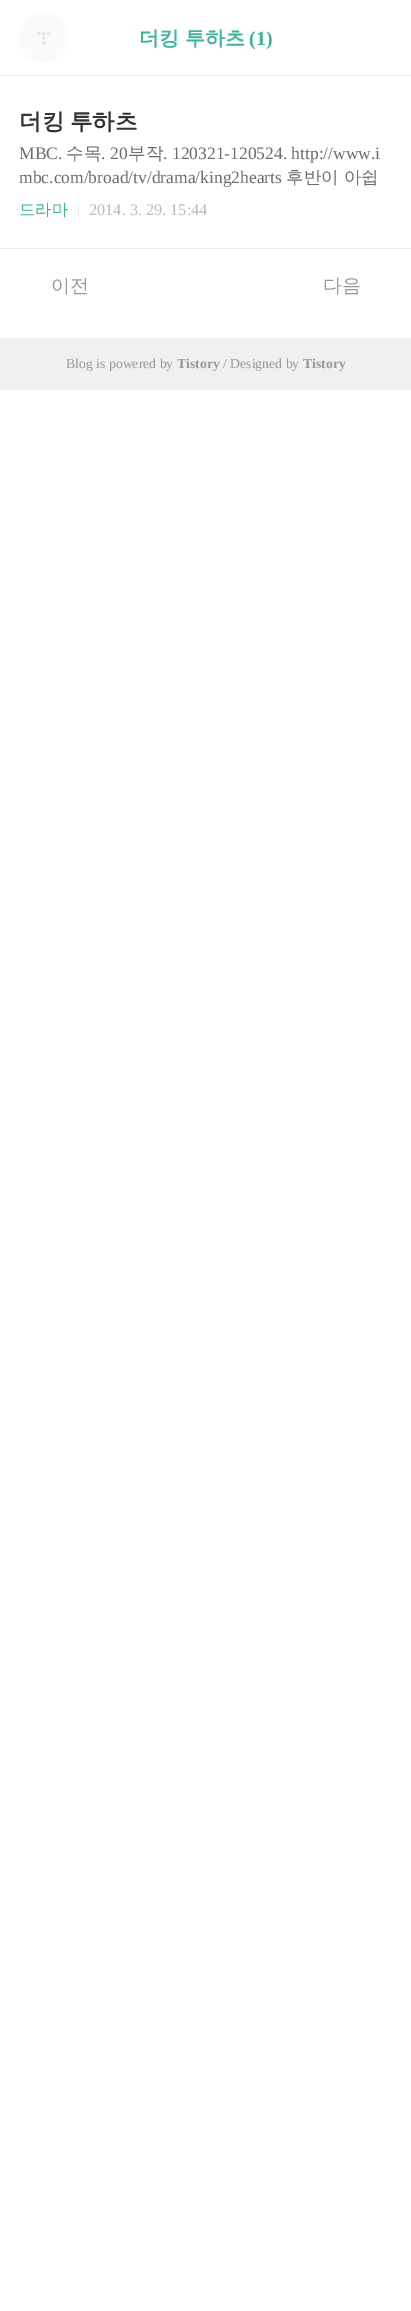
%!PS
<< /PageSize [411 2311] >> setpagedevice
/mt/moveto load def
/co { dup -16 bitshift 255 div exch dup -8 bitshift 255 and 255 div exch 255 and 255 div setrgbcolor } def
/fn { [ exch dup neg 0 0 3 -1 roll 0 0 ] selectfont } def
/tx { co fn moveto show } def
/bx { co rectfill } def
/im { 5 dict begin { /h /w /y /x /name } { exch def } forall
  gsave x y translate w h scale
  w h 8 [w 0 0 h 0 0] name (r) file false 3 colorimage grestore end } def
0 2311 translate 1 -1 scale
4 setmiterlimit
0 0 411 2311 16#FFFFFF bx
0 75 411 1 16#EBEBEB bx
(media/1.raw) 19 13 49 49 im
0 248 411 1 16#EBEBEB bx
78 204 1 11 16#EBEBEB bx
0 338 411 52 16#F0F0F0 bx
(더킹 투하츠) 139 45 /WenQuanYiZenHei-Bold 20 16#3DB39E tx
(\(1\)) 249 45 /LiberationSerif-Bold 20 16#3DB39E tx
/WenQuanYiZenHei-Bold 22.5 fn
16#333333 co
19 129 mt -1 0 32 (더킹 투하츠) widthshow
(MBC.) 19 159 /LiberationSerif-Regular 17.5 16#6B6B6B tx
(수목) 66 159 /WenQuanYiZenHei-Medium 17.5 16#6B6B6B tx
(. 20) 101 159 /LiberationSerif-Regular 17.5 16#6B6B6B tx
(부작) 128 159 /WenQuanYiZenHei-Medium 17.5 16#6B6B6B tx
(. 120321-120524. http://www.i) 163 159 /LiberationSerif-Regular 17.5 16#6B6B6B tx
(mbc.com/broad/tv/drama/king2hearts) 19 183 /LiberationSerif-Regular 17.5 16#6B6B6B tx
(후반이 아쉽) 286 183 /WenQuanYiZenHei-Medium 17.5 16#6B6B6B tx
(드라마) 19 215 /WenQuanYiZenHei-Medium 16.25 16#3DB39E tx
(2014. 3. 29. 15:44) 89 215 /LiberationSerif-Regular 16.25 16#BBBBBB tx
(이전) 51 292 /WenQuanYiZenHei-Medium 19 16#999999 tx
(다음) 323 292 /WenQuanYiZenHei-Medium 19 16#999999 tx
(Blog is powered by) 66 368 /LiberationSerif-Regular 13.75 16#999999 tx
(Tistory) 177 368 /LiberationSerif-Bold 13.75 16#999999 tx
(/ Designed by) 223 368 /LiberationSerif-Regular 13.75 16#999999 tx
(Tistory) 303 368 /LiberationSerif-Bold 13.75 16#999999 tx
showpage
